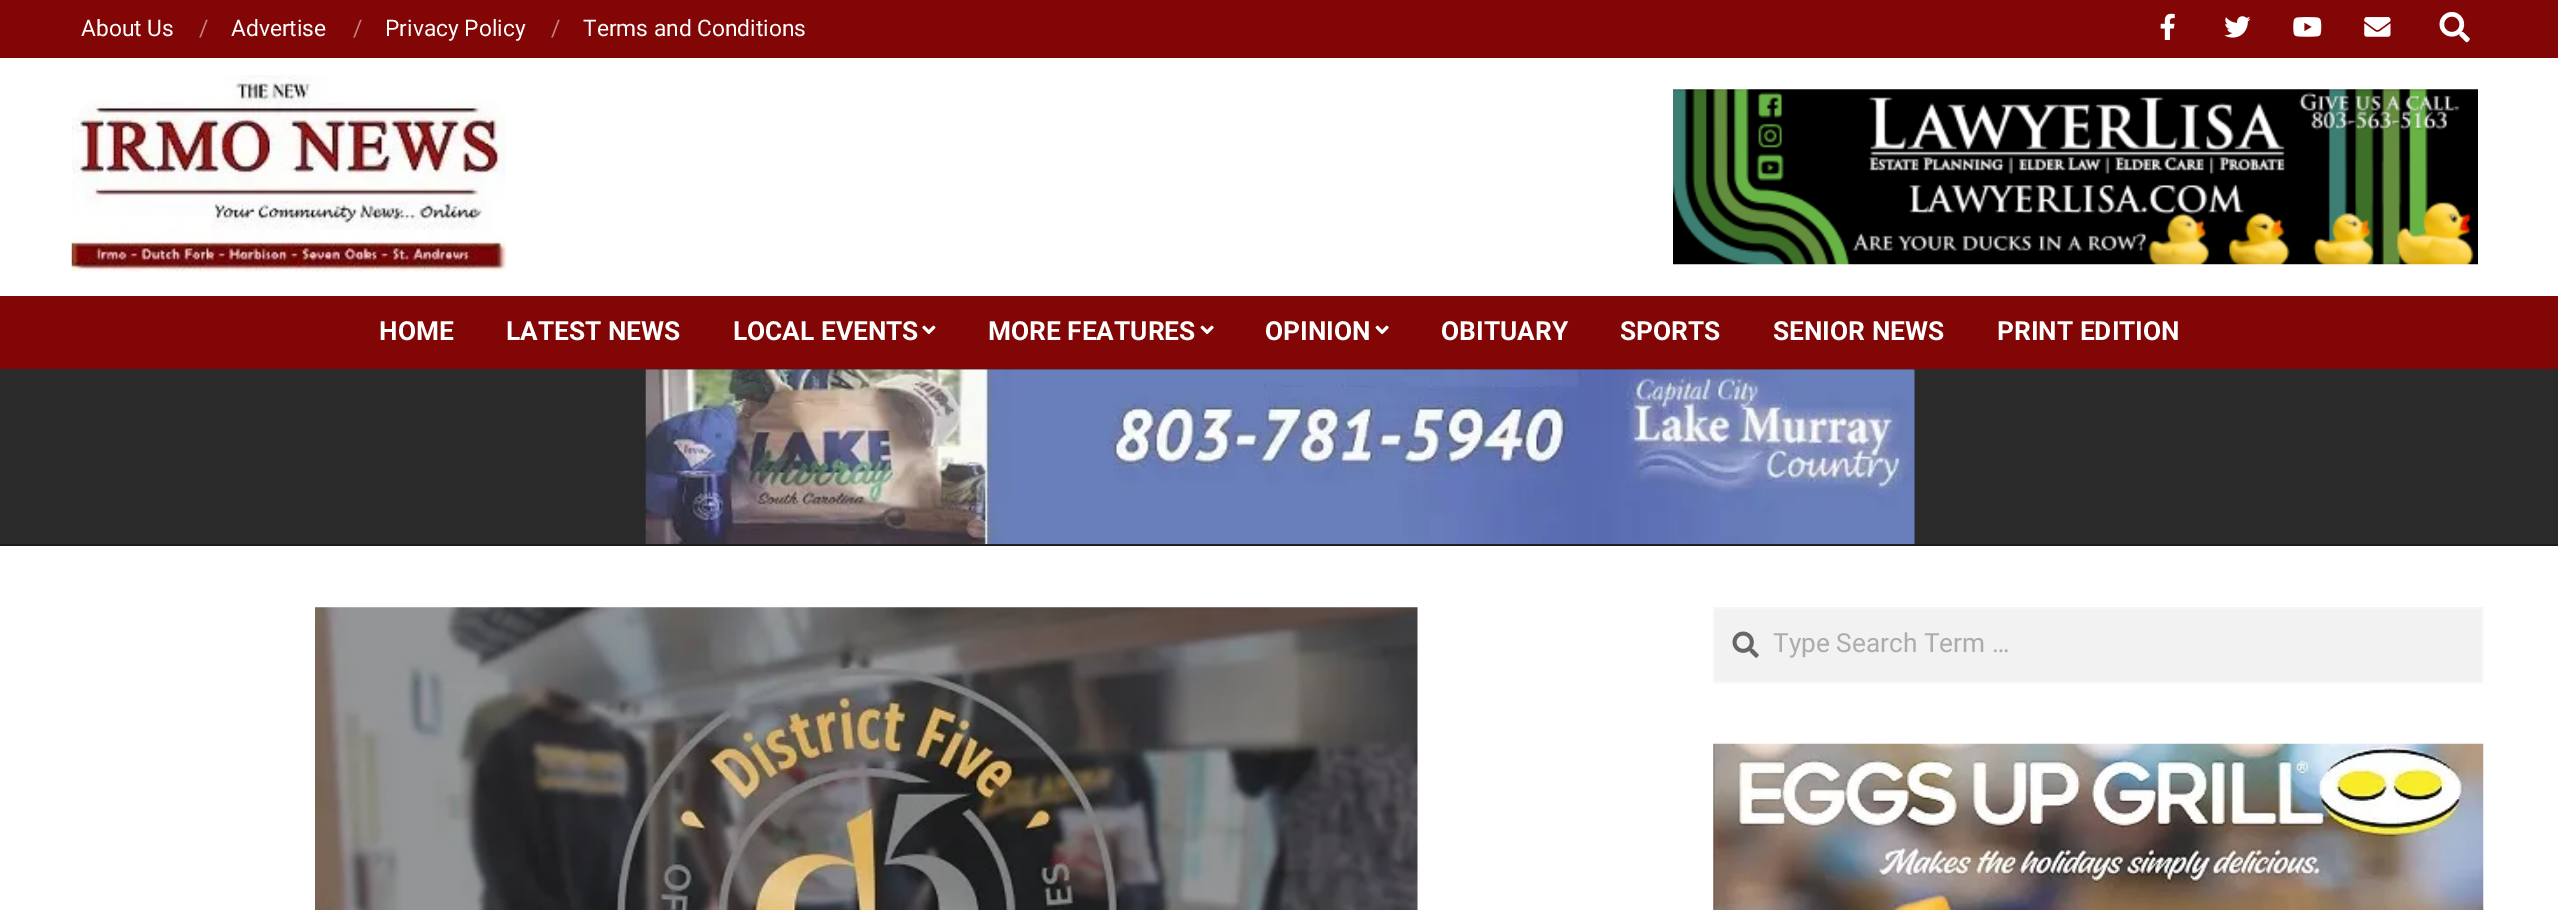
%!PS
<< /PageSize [2558 910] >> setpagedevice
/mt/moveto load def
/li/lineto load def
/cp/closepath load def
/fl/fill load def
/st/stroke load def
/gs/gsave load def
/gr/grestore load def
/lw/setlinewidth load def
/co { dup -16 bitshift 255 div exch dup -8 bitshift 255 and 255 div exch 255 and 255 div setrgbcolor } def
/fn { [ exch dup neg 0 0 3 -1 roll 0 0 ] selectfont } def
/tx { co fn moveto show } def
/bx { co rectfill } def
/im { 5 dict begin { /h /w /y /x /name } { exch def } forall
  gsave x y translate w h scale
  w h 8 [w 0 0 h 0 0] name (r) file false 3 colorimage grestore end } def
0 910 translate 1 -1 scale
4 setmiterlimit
0 0 2558 910 16#FFFFFF bx
0 0 2558 58 16#820606 bx
(media/1.raw) 2160 13 15 27 im
(media/2.raw) 2224 16 27 22 im
(media/3.raw) 2293 17 29 20 im
(media/4.raw) 2364 17 27 20 im
(media/5.raw) 2439 12 31 31 im
(media/6.raw) 71 75 435 198 im
(media/7.raw) 1673 89 805 176 im
0 296 2558 73 16#820606 bx
(media/8.raw) 922 325 14 10 im
(media/9.raw) 1200 325 14 10 im
(media/9.raw) 1375 325 14 10 im
0 369 2558 175 16#2A2A2A bx
0 544 2558 2 16#1C1C1C bx
(media/10.raw) 645 369 1270 176 im
(media/11.raw) 315 607 1103 303 im
16#F2F2F2 co
1714 608 mt 2482 608 li 2482 682 li 1714 682 li cp gs fl gr
16#F6F6F6 co
2 lw
st
(media/12.raw) 1732 631 27 27 im
(media/13.raw) 1713 743 771 167 im
(About Us) 81 36 /Roboto-Regular 22.75 16#FFFFFF tx
(/) 199 36 /Roboto-Regular 22.75 16#C18383 tx
(Advertise) 231 36 /Roboto-Regular 22.75 16#FFFFFF tx
(/) 353 36 /Roboto-Regular 22.75 16#C18383 tx
(Privacy Policy) 385 36 /Roboto-Regular 22.75 16#FFFFFF tx
(/) 551 36 /Roboto-Regular 22.75 16#C18383 tx
(Terms and Conditions) 583 36 /Roboto-Regular 22.75 16#FFFFFF tx
(HOME) 379 340 /Roboto-Bold 26.25 16#FFFFFF tx
(LATEST NEWS) 506 340 /Roboto-Bold 26.25 16#FFFFFF tx
(LOCAL EVENTS) 733 340 /Roboto-Bold 26.25 16#FFFFFF tx
(MORE FEATURES) 988 340 /Roboto-Bold 26.25 16#FFFFFF tx
(OPINION) 1265 340 /Roboto-Bold 26.25 16#FFFFFF tx
(OBITUARY) 1441 340 /Roboto-Bold 26.25 16#FFFFFF tx
(SPORTS) 1620 340 /Roboto-Bold 26.25 16#FFFFFF tx
(SENIOR NEWS) 1773 340 /Roboto-Bold 26.25 16#FFFFFF tx
(PRINT EDITION) 1997 340 /Roboto-Bold 26.25 16#FFFFFF tx
(Type Search Term …) 1773 652 /Roboto-Regular 26.25 16#ACACAC tx
showpage
